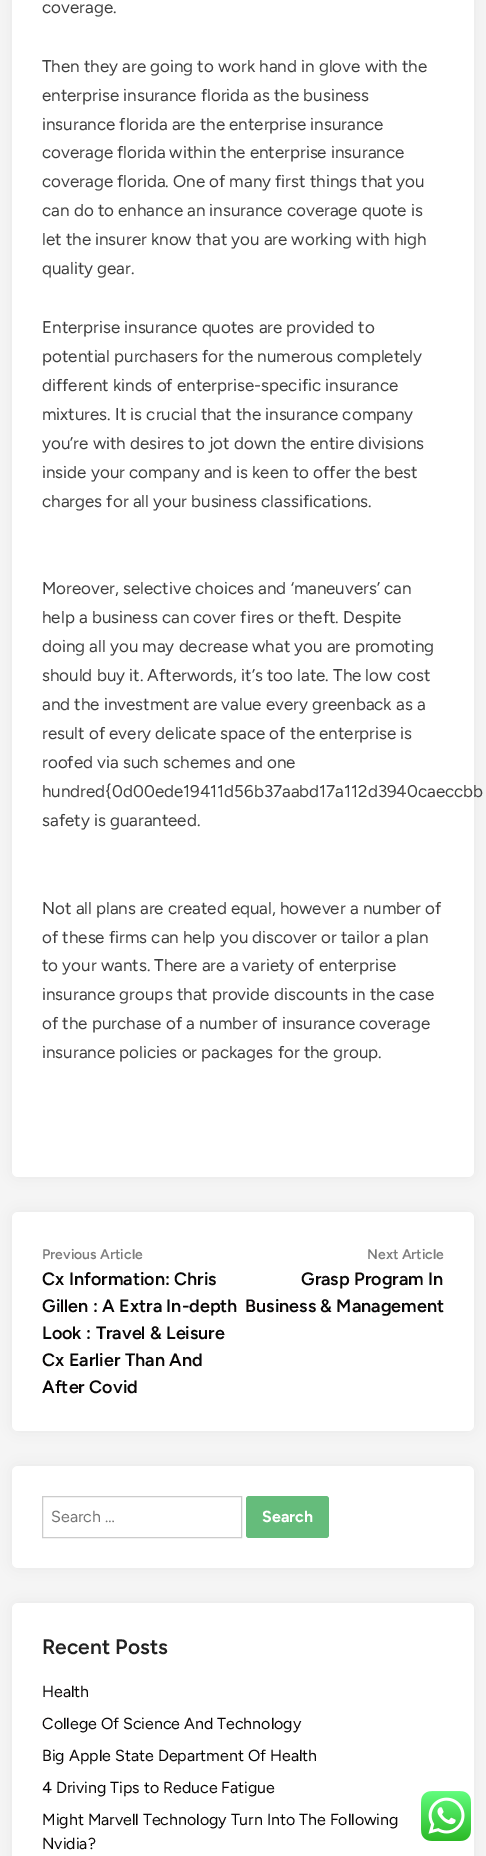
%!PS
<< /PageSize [486 1856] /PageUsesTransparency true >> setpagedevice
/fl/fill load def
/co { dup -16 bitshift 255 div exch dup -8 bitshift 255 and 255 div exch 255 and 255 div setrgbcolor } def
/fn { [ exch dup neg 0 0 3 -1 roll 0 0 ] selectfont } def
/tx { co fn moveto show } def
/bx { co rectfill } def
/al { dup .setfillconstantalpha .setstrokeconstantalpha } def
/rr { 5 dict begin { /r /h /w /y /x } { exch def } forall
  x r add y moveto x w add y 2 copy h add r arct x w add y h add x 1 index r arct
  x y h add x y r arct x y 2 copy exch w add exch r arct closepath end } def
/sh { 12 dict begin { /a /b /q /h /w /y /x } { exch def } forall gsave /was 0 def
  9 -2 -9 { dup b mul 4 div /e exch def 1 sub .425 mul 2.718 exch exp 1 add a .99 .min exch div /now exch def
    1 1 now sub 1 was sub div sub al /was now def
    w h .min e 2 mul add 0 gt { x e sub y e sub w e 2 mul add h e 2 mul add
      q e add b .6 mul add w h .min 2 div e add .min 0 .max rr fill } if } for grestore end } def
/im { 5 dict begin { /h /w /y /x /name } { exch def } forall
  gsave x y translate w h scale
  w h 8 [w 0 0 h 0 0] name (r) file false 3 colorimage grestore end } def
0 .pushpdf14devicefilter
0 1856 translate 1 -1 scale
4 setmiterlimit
0 0 486 1856 16#F5F5F5 bx
16#000000 co
12 -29 462 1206 6 7.5 .06 sh
16#FFFFFF co
12 -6 462 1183 6 rr fl
16#000000 co
12 1212 462 219 6 7.5 .06 sh
16#FFFFFF co
12 1212 462 219 6 rr fl
16#000000 co
12 1466 462 102 6 7.5 .06 sh
16#FFFFFF co
12 1466 462 102 6 rr fl
16#CCCCCC co
42.5 1496.5 199 41 rectstroke
16#65BC7B co
246 1496 83 42 3 rr fl
16#000000 co
12 1603 462 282 6 7.5 .06 sh
16#FFFFFF co
12 1603 462 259 6 rr fl
(media/1.raw) 421 1791 50 50 im
(coverage.) 42 13 /Figtree-Regular 17 16#404040 tx
(Then they are going to work hand in glove with the) 42 72 /Figtree-Regular 17 16#404040 tx
(enterprise insurance florida as the business) 42 101 /Figtree-Regular 17 16#404040 tx
(insurance florida are the enterprise insurance) 42 130 /Figtree-Regular 17 16#404040 tx
(coverage florida within the enterprise insurance) 42 158 /Figtree-Regular 17 16#404040 tx
(coverage florida. One of many first things that you) 42 187 /Figtree-Regular 17 16#404040 tx
(can do to enhance an insurance coverage quote is) 42 216 /Figtree-Regular 17 16#404040 tx
(let the insurer know that you are working with high) 42 245 /Figtree-Regular 17 16#404040 tx
(quality gear.) 42 274 /Figtree-Regular 17 16#404040 tx
(Enterprise insurance quotes are provided to) 42 333 /Figtree-Regular 17 16#404040 tx
(potential purchasers for the numerous completely) 42 362 /Figtree-Regular 17 16#404040 tx
(different kinds of enterprise-specific insurance) 42 391 /Figtree-Regular 17 16#404040 tx
(mixtures. It is crucial that the insurance company) 42 420 /Figtree-Regular 17 16#404040 tx
(you’re with desires to jot down the entire divisions) 42 449 /Figtree-Regular 17 16#404040 tx
(inside your company and is keen to offer the best) 42 478 /Figtree-Regular 17 16#404040 tx
(charges for all your business classifications.) 42 507 /Figtree-Regular 17 16#404040 tx
(Moreover, selective choices and ‘maneuvers’ can) 42 594 /Figtree-Regular 17 16#404040 tx
(help a business can cover fires or theft. Despite) 42 623 /Figtree-Regular 17 16#404040 tx
(doing all you may decrease what you are promoting) 42 652 /Figtree-Regular 17 16#404040 tx
(should buy it. Afterwords, it’s too late. The low cost) 42 681 /Figtree-Regular 17 16#404040 tx
(and the investment are value every greenback as a) 42 710 /Figtree-Regular 17 16#404040 tx
(result of every delicate space of the enterprise is) 42 739 /Figtree-Regular 17 16#404040 tx
(roofed via such schemes and one) 42 768 /Figtree-Regular 17 16#404040 tx
(hundred{0d00ede19411d56b37aabd17a112d3940caeccbb) 42 797 /Figtree-Regular 17 16#404040 tx
(safety is guaranteed.) 42 826 /Figtree-Regular 17 16#404040 tx
(Not all plans are created equal, however a number of) 42 914 /Figtree-Regular 17 16#404040 tx
(of these firms can help you discover or tailor a plan) 42 943 /Figtree-Regular 17 16#404040 tx
(to your wants. There are a variety of enterprise) 42 971 /Figtree-Regular 17 16#404040 tx
(insurance groups that provide discounts in the case) 42 1000 /Figtree-Regular 17 16#404040 tx
(of the purchase of a number of insurance coverage) 42 1029 /Figtree-Regular 17 16#404040 tx
(insurance policies or packages for the group.) 42 1058 /Figtree-Regular 17 16#404040 tx
(Previous Article) 42 1259 /Figtree-SemiBold 14 16#7D7D7D tx
(Cx Information: Chris) 42 1285 /Figtree-SemiBold 18 16#0A0808 tx
(Gillen : A Extra In-depth) 42 1312 /Figtree-SemiBold 18 16#0A0808 tx
(Look : Travel & Leisure) 42 1339 /Figtree-SemiBold 18 16#0A0808 tx
(Cx Earlier Than And) 42 1366 /Figtree-SemiBold 18 16#0A0808 tx
(After Covid) 42 1393 /Figtree-SemiBold 18 16#0A0808 tx
(Next Article) 367 1259 /Figtree-SemiBold 14 16#7D7D7D tx
(Grasp Program In) 301 1285 /Figtree-SemiBold 18 16#0A0808 tx
(Business & Management) 245 1312 /Figtree-SemiBold 18 16#0A0808 tx
(Search …) 51 1522 /Figtree-Regular 16 16#757575 tx
(Search) 262 1522 /Figtree-Bold 16 16#FFFFFF tx
(Recent Posts) 42 1654 /Figtree-SemiBold 21 16#222222 tx
(Health) 42 1697 /Figtree-Regular 16 16#0A0808 tx
(College Of Science And Technology) 42 1729 /Figtree-Regular 16 16#0A0808 tx
(Big Apple State Department Of Health) 42 1761 /Figtree-Regular 16 16#0A0808 tx
(4 Driving Tips to Reduce Fatigue) 42 1793 /Figtree-Regular 16 16#0A0808 tx
(Might Marvell Technology Turn Into The Following) 42 1825 /Figtree-Regular 16 16#0A0808 tx
(Nvidia?) 42 1849 /Figtree-Regular 16 16#0A0808 tx
.poppdf14devicefilter showpage
